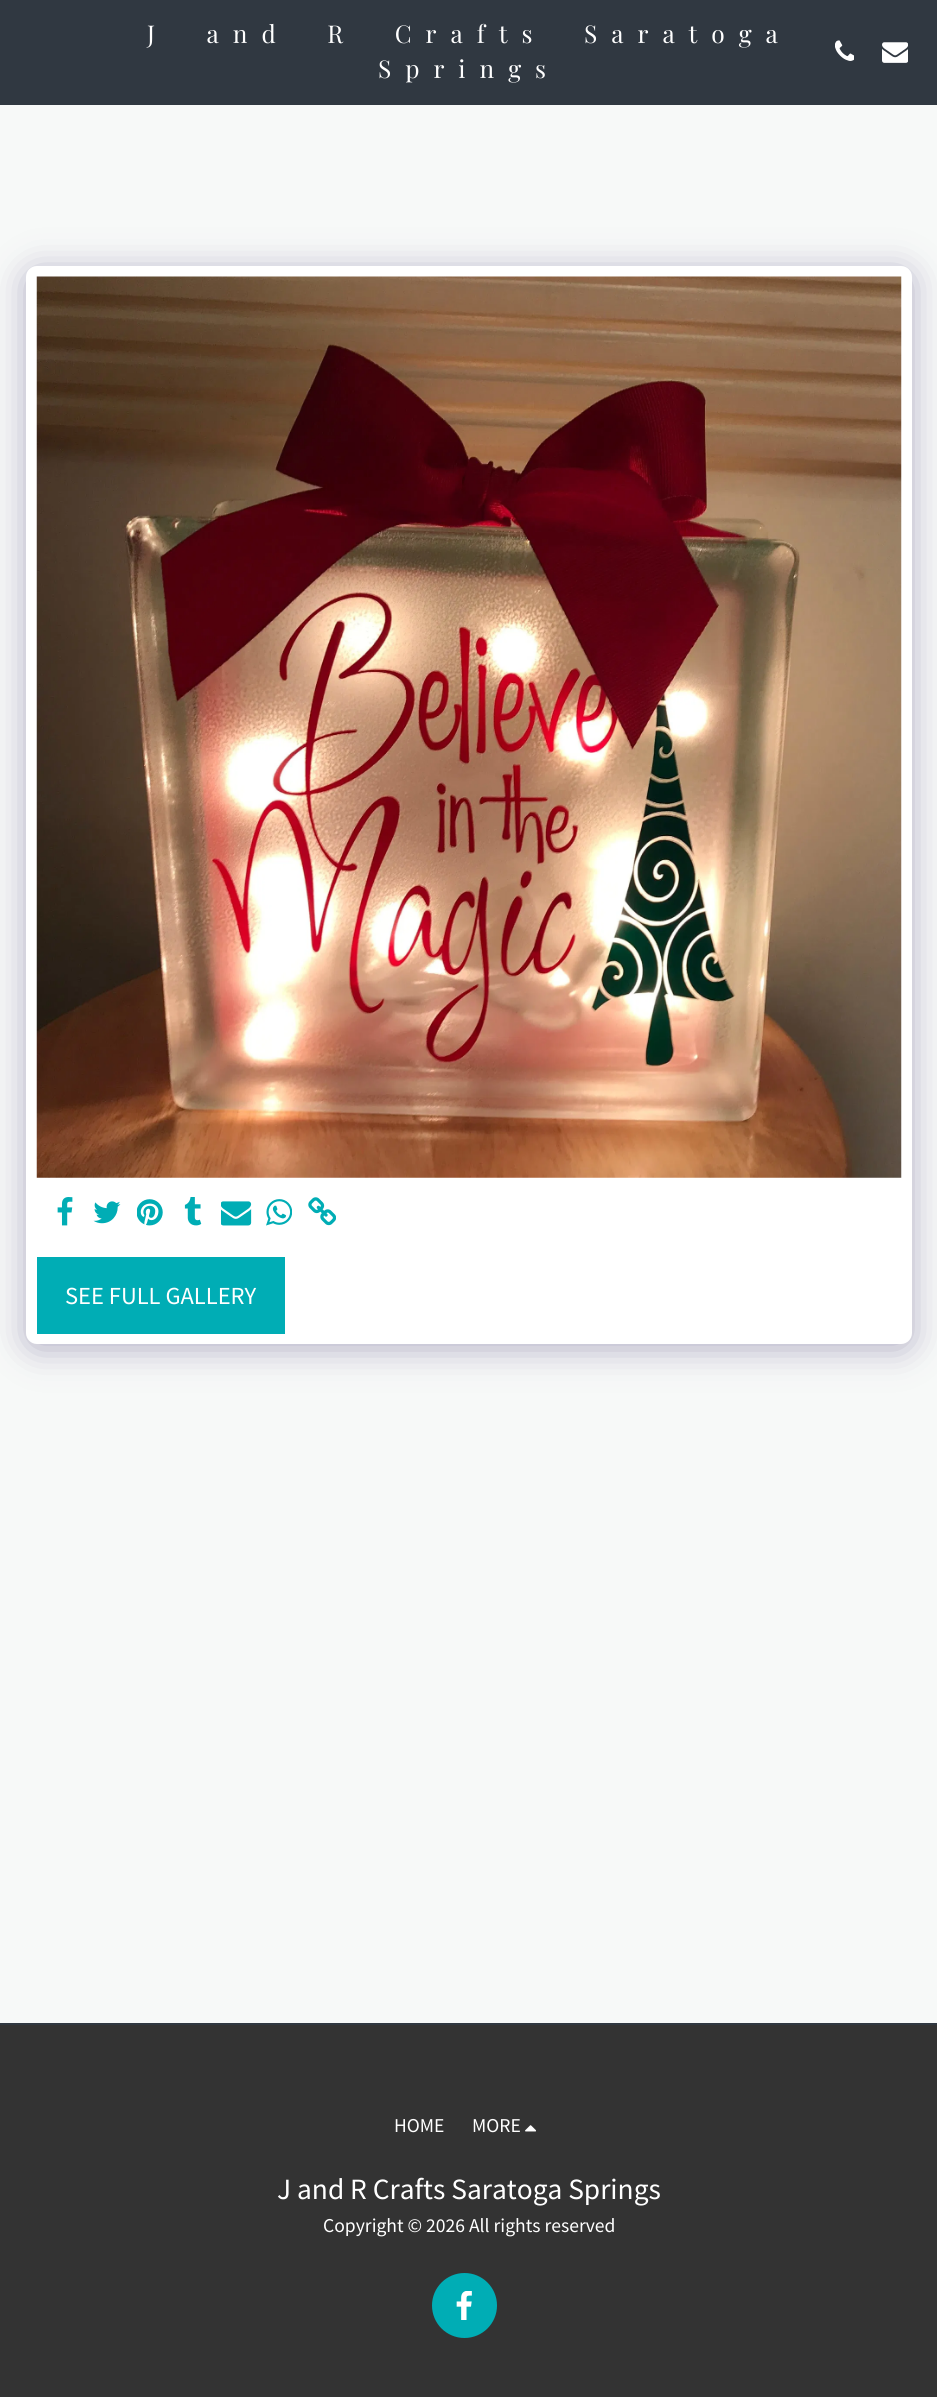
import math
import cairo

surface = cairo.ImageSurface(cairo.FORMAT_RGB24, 937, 2397)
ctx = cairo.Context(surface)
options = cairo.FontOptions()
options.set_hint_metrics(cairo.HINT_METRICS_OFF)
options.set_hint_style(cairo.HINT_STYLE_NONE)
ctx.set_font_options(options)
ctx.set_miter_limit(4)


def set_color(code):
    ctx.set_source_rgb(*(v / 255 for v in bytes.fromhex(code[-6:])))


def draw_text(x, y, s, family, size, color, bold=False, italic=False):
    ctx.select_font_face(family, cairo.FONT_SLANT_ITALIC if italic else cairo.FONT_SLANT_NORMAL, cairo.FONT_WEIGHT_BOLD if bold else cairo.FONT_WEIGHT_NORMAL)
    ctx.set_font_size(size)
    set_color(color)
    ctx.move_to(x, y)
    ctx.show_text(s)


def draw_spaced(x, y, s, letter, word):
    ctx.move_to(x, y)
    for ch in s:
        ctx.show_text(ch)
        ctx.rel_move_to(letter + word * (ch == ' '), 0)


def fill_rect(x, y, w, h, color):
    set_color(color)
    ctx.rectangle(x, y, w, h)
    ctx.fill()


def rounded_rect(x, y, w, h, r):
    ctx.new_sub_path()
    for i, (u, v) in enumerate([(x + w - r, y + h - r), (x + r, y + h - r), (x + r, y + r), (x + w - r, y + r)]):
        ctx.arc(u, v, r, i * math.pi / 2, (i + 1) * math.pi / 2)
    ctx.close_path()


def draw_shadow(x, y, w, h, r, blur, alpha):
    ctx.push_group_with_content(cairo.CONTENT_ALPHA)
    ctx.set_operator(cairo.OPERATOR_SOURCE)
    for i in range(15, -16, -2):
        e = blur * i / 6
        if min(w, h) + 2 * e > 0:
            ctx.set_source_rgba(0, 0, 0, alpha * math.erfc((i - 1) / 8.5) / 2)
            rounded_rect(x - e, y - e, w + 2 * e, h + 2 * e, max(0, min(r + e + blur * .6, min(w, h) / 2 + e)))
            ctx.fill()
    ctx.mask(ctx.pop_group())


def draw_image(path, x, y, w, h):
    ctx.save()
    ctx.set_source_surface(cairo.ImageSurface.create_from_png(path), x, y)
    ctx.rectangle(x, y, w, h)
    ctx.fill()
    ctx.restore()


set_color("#f7f9f8")
ctx.paint()
fill_rect(0, 0, 937, 105, "#303841")
ctx.select_font_face("Playfair Display")
ctx.set_font_size(24.5)
set_color("#ffffff")
draw_spaced(147, 43, "J and R Crafts Saratoga", 14, 17.5)
draw_spaced(378, 78, "Springs", 14, 0)
draw_image("assets/img1.png", 835, 40, 19, 21)
draw_image("assets/img2.png", 882, 42, 26, 21)
set_color("#4d3f7a")
draw_shadow(26, 271, 886, 1078, 11, 17.5, 0.4)
set_color("#ffffff")
rounded_rect(26, 266, 886, 1078, 11)
ctx.fill()
draw_image("assets/img3.png", 36, 276, 866, 902)
draw_image("assets/img4.png", 57, 1197, 16, 29)
draw_image("assets/img5.png", 93, 1201, 28, 23)
draw_image("assets/img6.png", 137, 1199, 26, 27)
draw_image("assets/img7.png", 184, 1197, 18, 29)
draw_image("assets/img8.png", 221, 1201, 31, 25)
draw_image("assets/img9.png", 266, 1199, 26, 27)
draw_image("assets/img10.png", 308, 1197, 28, 29)
fill_rect(37, 1257, 248, 77, "#00adb5")
draw_text(65, 1304, "SEE FULL GALLERY", "Source Sans Pro", 24.5, "#ffffff")
fill_rect(0, 2025, 937, 372, "#333333")
fill_rect(0, 2023, 937, 2, "#303841")
draw_text(394, 2132, "HOME", "Source Sans Pro", 19.6, "#ffffff")
draw_text(472, 2132, "MORE", "Source Sans Pro", 19.6, "#ffffff")
draw_image("assets/img11.png", 525, 2125, 11, 7)
draw_text(277, 2199, "J and R Crafts Saratoga Springs", "Source Sans Pro", 29.4, "#ffffff")
draw_text(323, 2232, "Copyright © 2026 All rights reserved", "Source Sans Pro", 19.6, "#ffffff")
set_color("#00adb5")
ctx.new_path()
ctx.arc(464.5, 2305.5, 31.5, 0, 2 * math.pi)
ctx.fill_preserve()
ctx.stroke()
draw_image("assets/img12.png", 456, 2291, 16, 29)
surface.write_to_png("output.png")
